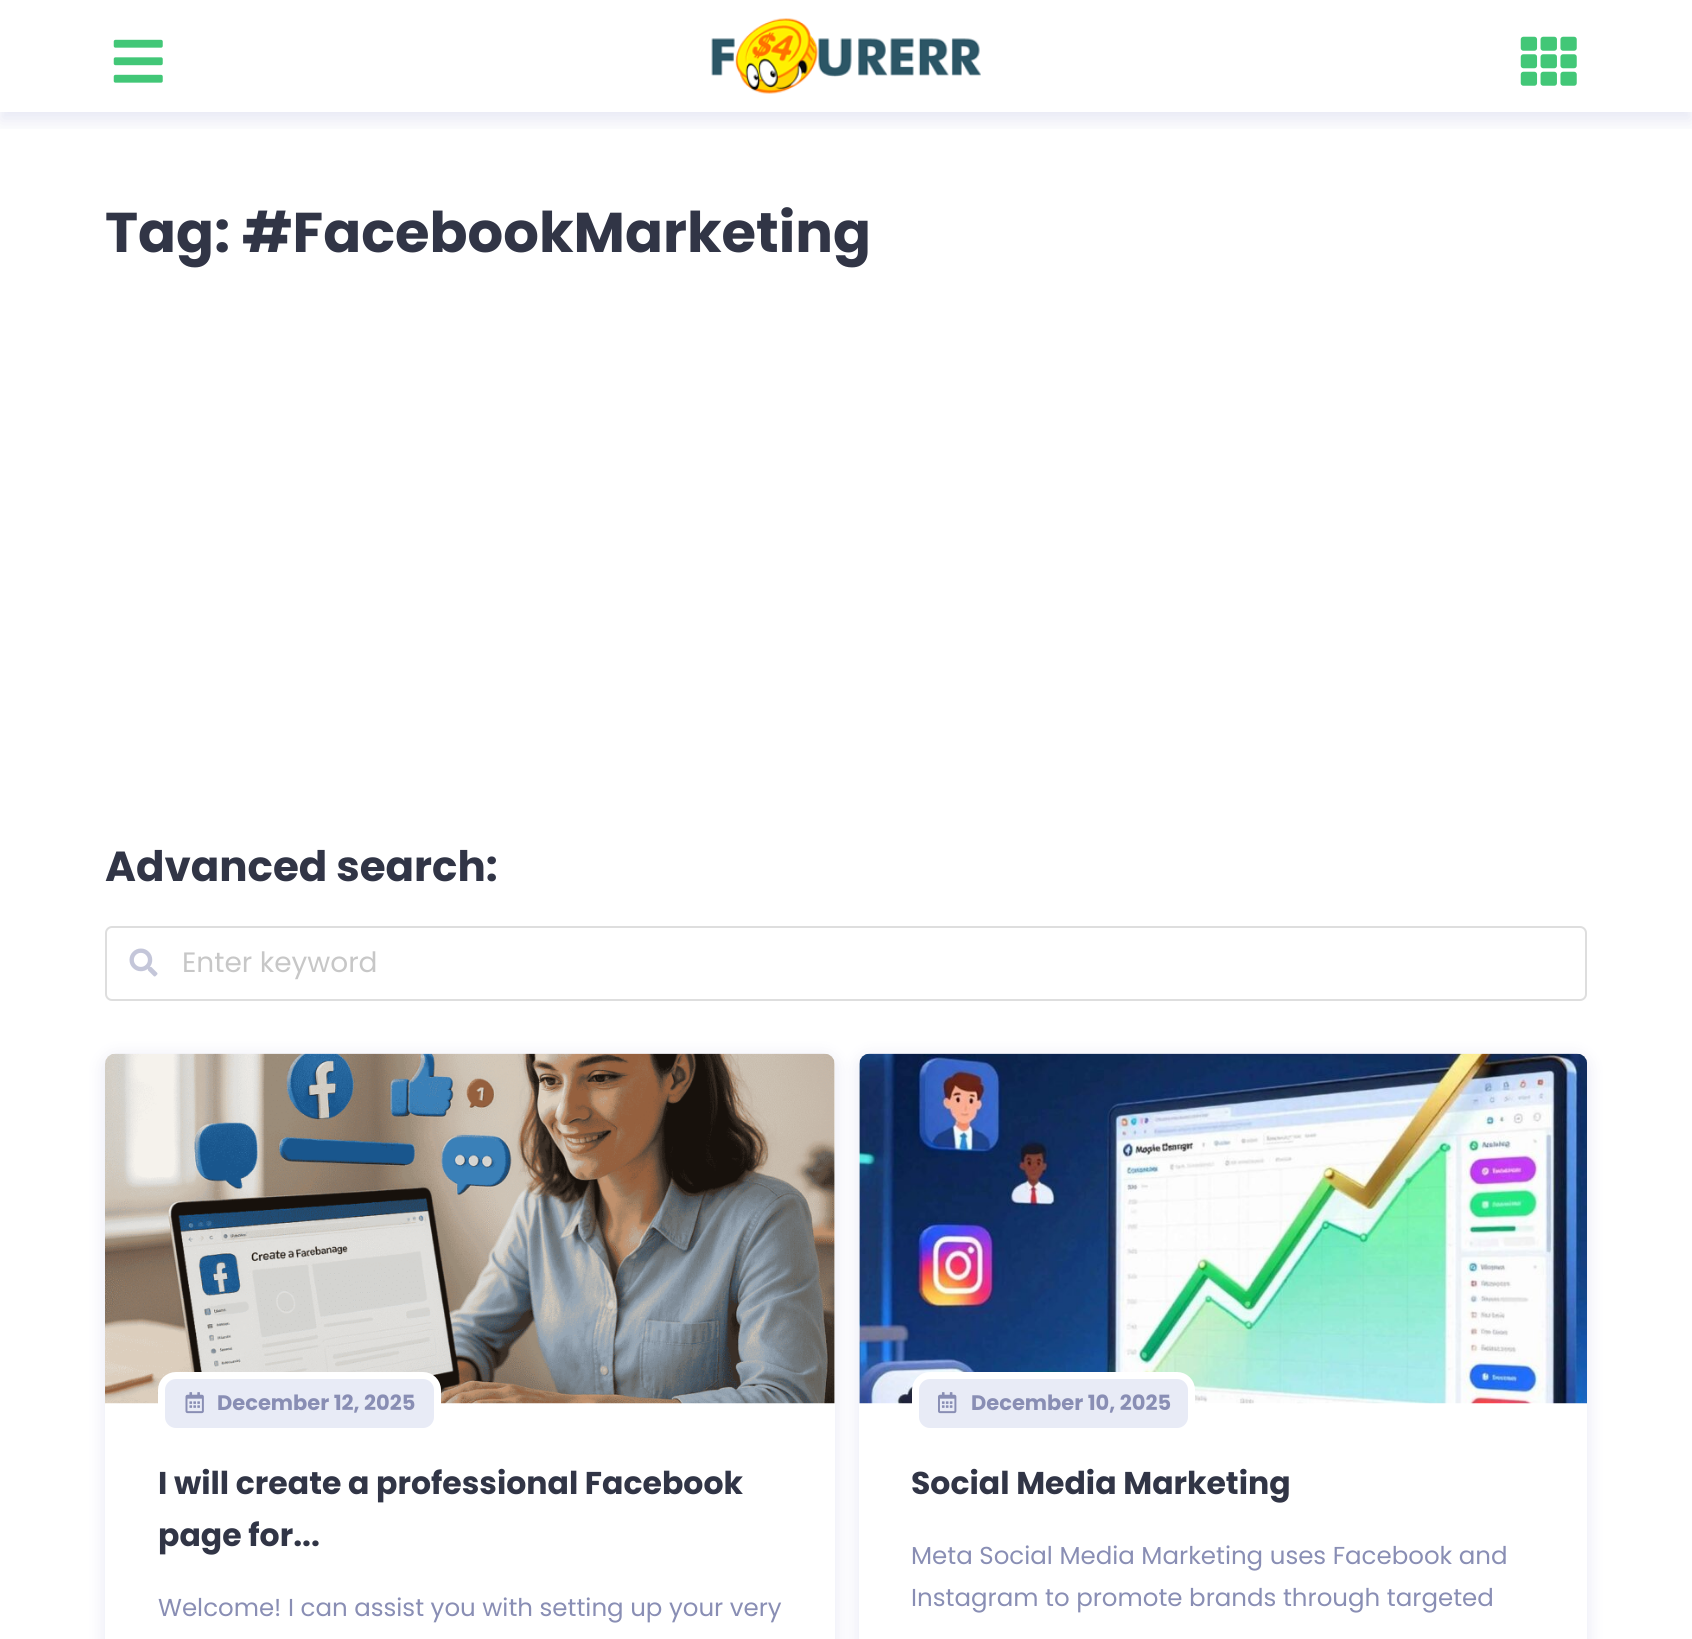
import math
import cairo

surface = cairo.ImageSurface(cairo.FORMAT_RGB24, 1692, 1639)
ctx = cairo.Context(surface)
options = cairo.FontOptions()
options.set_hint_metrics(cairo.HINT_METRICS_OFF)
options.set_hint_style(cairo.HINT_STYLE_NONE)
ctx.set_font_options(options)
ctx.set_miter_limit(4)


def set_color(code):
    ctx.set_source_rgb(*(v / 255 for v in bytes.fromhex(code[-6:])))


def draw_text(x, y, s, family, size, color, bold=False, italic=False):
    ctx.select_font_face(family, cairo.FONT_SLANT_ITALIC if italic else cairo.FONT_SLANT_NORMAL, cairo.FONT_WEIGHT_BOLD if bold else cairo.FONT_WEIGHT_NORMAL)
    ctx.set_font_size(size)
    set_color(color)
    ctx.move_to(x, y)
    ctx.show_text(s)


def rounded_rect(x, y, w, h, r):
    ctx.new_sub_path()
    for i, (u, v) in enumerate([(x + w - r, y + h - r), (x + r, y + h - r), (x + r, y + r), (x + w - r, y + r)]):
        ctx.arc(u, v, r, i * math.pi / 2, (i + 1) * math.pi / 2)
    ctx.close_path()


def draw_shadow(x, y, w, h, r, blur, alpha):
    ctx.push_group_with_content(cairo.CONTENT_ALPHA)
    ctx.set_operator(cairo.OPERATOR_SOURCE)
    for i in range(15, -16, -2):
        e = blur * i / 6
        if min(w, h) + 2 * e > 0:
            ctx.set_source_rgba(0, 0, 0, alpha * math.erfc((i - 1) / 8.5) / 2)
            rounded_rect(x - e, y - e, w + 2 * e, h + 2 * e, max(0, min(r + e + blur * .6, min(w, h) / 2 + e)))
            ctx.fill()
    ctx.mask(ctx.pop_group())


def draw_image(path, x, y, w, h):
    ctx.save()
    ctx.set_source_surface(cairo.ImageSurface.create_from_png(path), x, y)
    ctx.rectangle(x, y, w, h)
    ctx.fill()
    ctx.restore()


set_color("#ffffff")
ctx.paint()
ctx.save()
ctx.rectangle(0, 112, 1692, 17)
ctx.clip()
set_color("#121c90")
draw_shadow(0, 9, 1692, 112, 0, 9, 0.1)
ctx.restore()
draw_image("assets/img1.png", 113, 39, 50, 44)
draw_image("assets/img2.png", 711, 18, 270, 76)
draw_image("assets/img3.png", 1520, 36, 57, 50)
draw_text(105, 252, "Tag: #FacebookMarketing", "Poppins", 56, "#313546", bold=True)
draw_text(105, 881, "Advanced search:", "Poppins", 42, "#313546", bold=True)
rounded_rect(106, 927, 1480, 73, 6)
set_color("#dedede")
ctx.stroke()
draw_image("assets/img4.png", 129, 948, 29, 29)
draw_text(182, 972, "Enter keyword", "Poppins", 28, "#c7c7c7")
set_color("#000c91")
draw_shadow(105, 1057, 730, 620, 11, 9, 0.1)
set_color("#ffffff")
rounded_rect(105, 1054, 730, 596, 11)
ctx.fill()
set_color("#000c91")
draw_shadow(859, 1057, 728, 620, 11, 9, 0.1)
draw_image("assets/img5.png", 105, 1053, 730, 351)
set_color("#e8ebf6")
rounded_rect(161.5, 1375.5, 276, 56, 14.5)
ctx.fill_preserve()
set_color("#ffffff")
ctx.set_line_width(7)
ctx.stroke()
draw_image("assets/img6.png", 185, 1392, 19, 22)
draw_text(217, 1410, "December 12, 2025", "Poppins", 21, "#898eb4", bold=True)
draw_text(158, 1494, "I will create a professional Facebook", "Poppins", 31.5, "#313546", bold=True)
draw_text(158, 1546, "page for...", "Poppins", 31.5, "#313546", bold=True)
draw_text(158, 1616, "Welcome! I can assist you with setting up your very", "Poppins", 24.5, "#898eb4")
set_color("#ffffff")
rounded_rect(859, 1054, 728, 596, 11)
ctx.fill()
draw_image("assets/img7.png", 859, 1053, 728, 351)
set_color("#e8ebf6")
rounded_rect(915.5, 1375.5, 276, 56, 14.5)
ctx.fill_preserve()
set_color("#ffffff")
ctx.stroke()
draw_image("assets/img8.png", 938, 1392, 19, 22)
draw_text(971, 1410, "December 10, 2025", "Poppins", 21, "#898eb4", bold=True)
draw_text(911, 1494, "Social Media Marketing", "Poppins", 31.5, "#313546", bold=True)
draw_text(911, 1564, "Meta Social Media Marketing uses Facebook and", "Poppins", 24.5, "#898eb4")
draw_text(911, 1606, "Instagram to promote brands through targeted", "Poppins", 24.5, "#898eb4")
surface.write_to_png("output.png")
